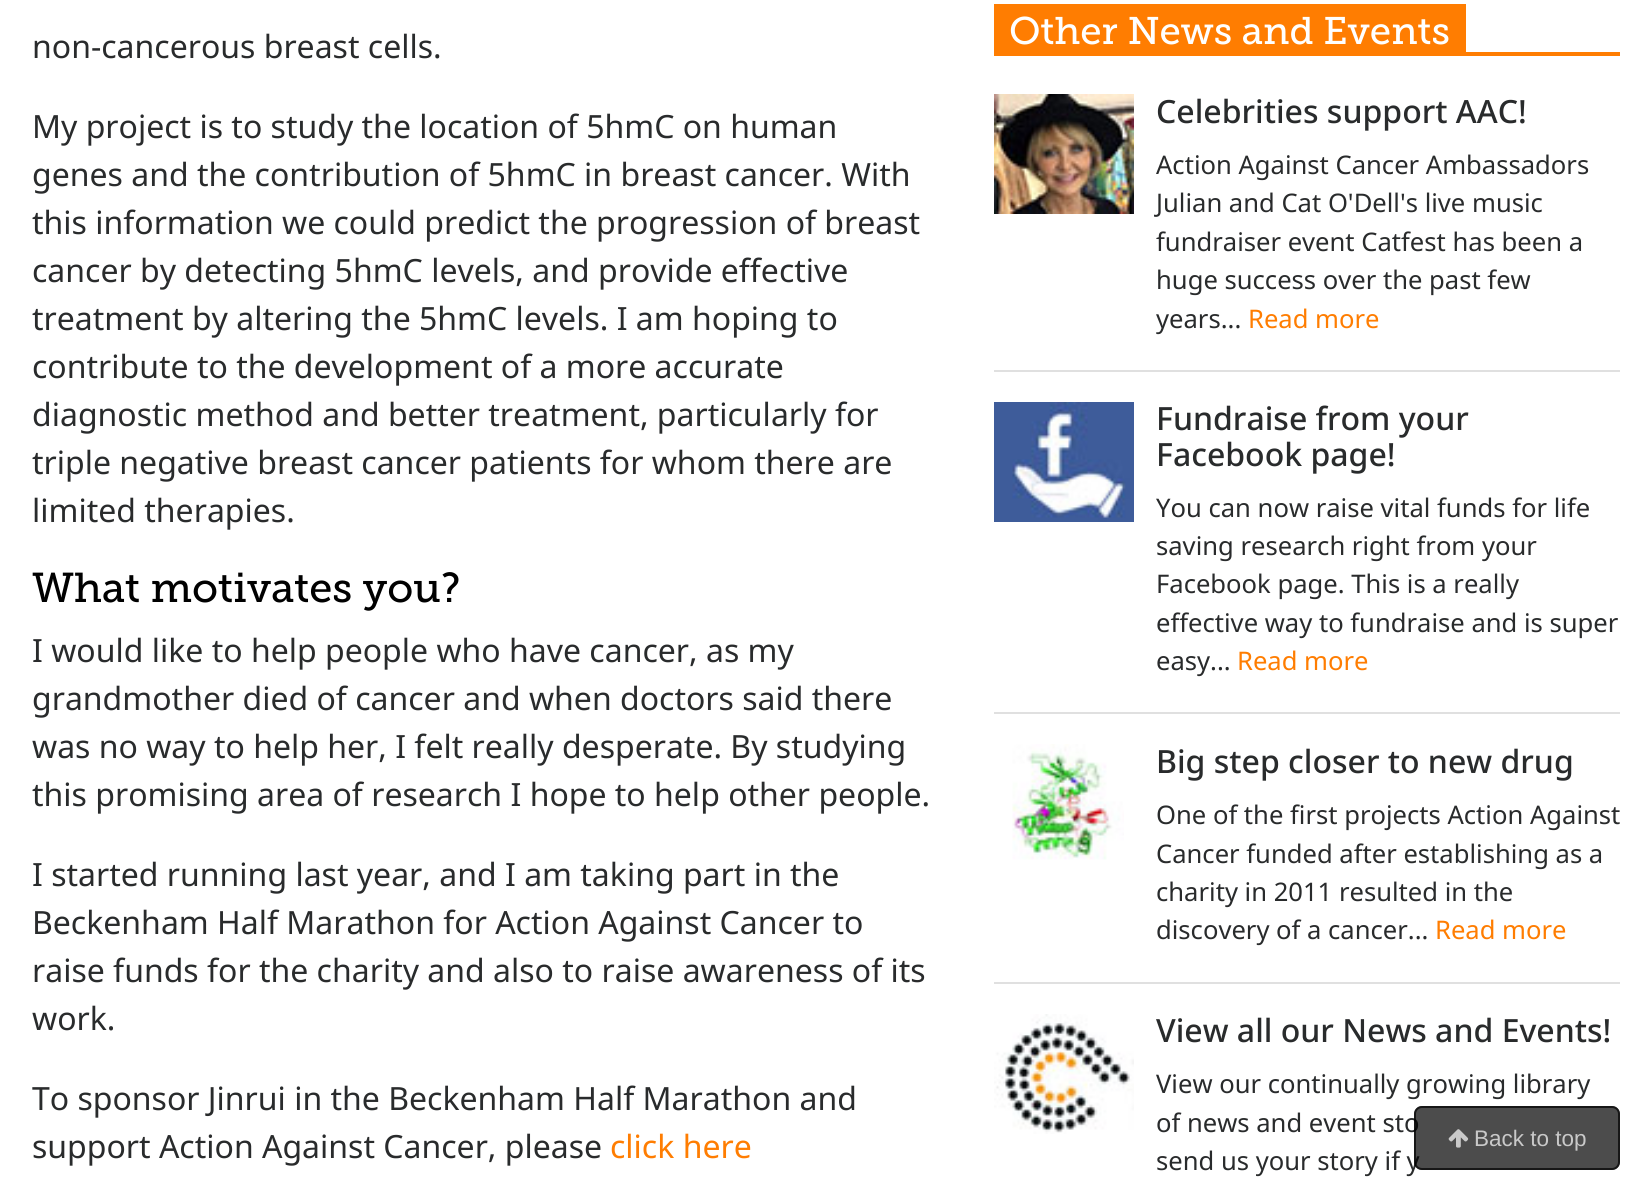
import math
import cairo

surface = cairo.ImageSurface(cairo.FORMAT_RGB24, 1651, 1201)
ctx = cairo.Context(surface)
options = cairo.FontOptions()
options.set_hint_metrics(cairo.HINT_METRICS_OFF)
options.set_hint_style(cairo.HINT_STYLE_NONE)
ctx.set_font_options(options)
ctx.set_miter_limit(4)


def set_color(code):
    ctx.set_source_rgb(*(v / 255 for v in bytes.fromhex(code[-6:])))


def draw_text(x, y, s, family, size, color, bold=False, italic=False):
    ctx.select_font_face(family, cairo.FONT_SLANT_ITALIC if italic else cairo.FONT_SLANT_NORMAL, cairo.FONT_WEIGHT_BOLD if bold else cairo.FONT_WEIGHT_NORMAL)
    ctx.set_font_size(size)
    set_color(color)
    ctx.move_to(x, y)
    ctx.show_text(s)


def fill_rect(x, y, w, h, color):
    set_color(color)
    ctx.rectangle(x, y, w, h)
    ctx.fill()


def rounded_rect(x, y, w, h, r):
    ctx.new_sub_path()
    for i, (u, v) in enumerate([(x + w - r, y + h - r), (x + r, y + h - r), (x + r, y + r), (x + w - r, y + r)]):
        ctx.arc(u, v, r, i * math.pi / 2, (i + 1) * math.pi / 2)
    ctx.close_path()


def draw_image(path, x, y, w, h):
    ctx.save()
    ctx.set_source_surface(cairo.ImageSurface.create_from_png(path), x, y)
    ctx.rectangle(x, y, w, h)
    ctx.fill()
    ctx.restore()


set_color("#ffffff")
ctx.paint()
draw_text(32, 58, "non-cancerous breast cells.", "Noto Sans", 32, "#292b2c")
draw_text(32, 138, "My project is to study the location of 5hmC on human", "Noto Sans", 32, "#292b2c")
draw_text(32, 186, "genes and the contribution of 5hmC in breast cancer. With", "Noto Sans", 32, "#292b2c")
draw_text(32, 234, "this information we could predict the progression of breast", "Noto Sans", 32, "#292b2c")
draw_text(32, 282, "cancer by detecting 5hmC levels, and provide effective", "Noto Sans", 32, "#292b2c")
draw_text(32, 330, "treatment by altering the 5hmC levels. I am hoping to", "Noto Sans", 32, "#292b2c")
draw_text(32, 378, "contribute to the development of a more accurate", "Noto Sans", 32, "#292b2c")
draw_text(32, 426, "diagnostic method and better treatment, particularly for", "Noto Sans", 32, "#292b2c")
draw_text(32, 474, "triple negative breast cancer patients for whom there are", "Noto Sans", 32, "#292b2c")
draw_text(32, 522, "limited therapies.", "Noto Sans", 32, "#292b2c")
draw_text(32, 602, "What motivates you?", "Museo Slab", 41.6, "#000000")
draw_text(32, 662, "I would like to help people who have cancer, as my", "Noto Sans", 32, "#292b2c")
draw_text(32, 710, "grandmother died of cancer and when doctors said there", "Noto Sans", 32, "#292b2c")
draw_text(32, 758, "was no way to help her, I felt really desperate. By studying", "Noto Sans", 32, "#292b2c")
draw_text(32, 806, "this promising area of research I hope to help other people.", "Noto Sans", 32, "#292b2c")
draw_text(32, 886, "I started running last year, and I am taking part in the", "Noto Sans", 32, "#292b2c")
draw_text(32, 934, "Beckenham Half Marathon for Action Against Cancer to", "Noto Sans", 32, "#292b2c")
draw_text(32, 982, "raise funds for the charity and also to raise awareness of its", "Noto Sans", 32, "#292b2c")
draw_text(32, 1030, "work.", "Noto Sans", 32, "#292b2c")
draw_text(32, 1110, "To sponsor Jinrui in the Beckenham Half Marathon and", "Noto Sans", 32, "#292b2c")
draw_text(32, 1158, "support Action Against Cancer, please", "Noto Sans", 32, "#292b2c")
draw_text(610, 1158, "click here", "Noto Sans", 32, "#ff7d01")
fill_rect(994, 52, 626, 4, "#ff7d01")
fill_rect(994, 4, 472, 48, "#ff7d01")
draw_text(1009, 44, "Other News and Events", "Museo Slab", 38.4, "#ffffff")
fill_rect(994, 370, 626, 2, "#e0e0e0")
draw_image("assets/img1.png", 994, 94, 140, 120)
draw_text(1156, 123, "Celebrities support AAC!", "Noto Sans Medium", 32, "#292b2c")
draw_text(1156, 174, "Action Against Cancer Ambassadors", "Noto Sans", 25.6, "#292b2c")
draw_text(1156, 212, "Julian and Cat O'Dell's live music", "Noto Sans", 25.6, "#292b2c")
draw_text(1156, 251, "fundraiser event Catfest has been a", "Noto Sans", 25.6, "#292b2c")
draw_text(1156, 289, "huge success over the past few", "Noto Sans", 25.6, "#292b2c")
draw_text(1156, 328, "years...", "Noto Sans", 25.6, "#292b2c")
draw_text(1248, 328, "Read more", "Noto Sans", 25.6, "#ff7d01")
fill_rect(994, 712, 626, 2, "#e0e0e0")
draw_image("assets/img2.png", 994, 402, 140, 120)
draw_text(1156, 430, "Fundraise from your", "Noto Sans Medium", 32, "#292b2c")
draw_text(1156, 466, "Facebook page!", "Noto Sans Medium", 32, "#292b2c")
draw_text(1156, 517, "You can now raise vital funds for life", "Noto Sans", 25.6, "#292b2c")
draw_text(1156, 555, "saving research right from your", "Noto Sans", 25.6, "#292b2c")
draw_text(1156, 593, "Facebook page. This is a really", "Noto Sans", 25.6, "#292b2c")
draw_text(1156, 632, "effective way to fundraise and is super", "Noto Sans", 25.6, "#292b2c")
draw_text(1156, 670, "easy...", "Noto Sans", 25.6, "#292b2c")
draw_text(1237, 670, "Read more", "Noto Sans", 25.6, "#ff7d01")
fill_rect(994, 982, 626, 2, "#e0e0e0")
draw_image("assets/img3.png", 1012, 744, 112, 116)
draw_text(1156, 773, "Big step closer to new drug", "Noto Sans Medium", 32, "#292b2c")
draw_text(1156, 824, "One of the first projects Action Against", "Noto Sans", 25.6, "#292b2c")
draw_text(1156, 863, "Cancer funded after establishing as a", "Noto Sans", 25.6, "#292b2c")
draw_text(1156, 901, "charity in 2011 resulted in the", "Noto Sans", 25.6, "#292b2c")
draw_text(1156, 939, "discovery of a cancer...", "Noto Sans", 25.6, "#292b2c")
draw_text(1435, 939, "Read more", "Noto Sans", 25.6, "#ff7d01")
draw_image("assets/img4.png", 994, 1014, 140, 120)
draw_text(1156, 1042, "View all our News and Events!", "Noto Sans Medium", 32, "#292b2c")
draw_text(1156, 1093, "View our continually growing library", "Noto Sans", 25.6, "#292b2c")
draw_text(1156, 1132, "of news and event sto", "Noto Sans", 25.6, "#292b2c")
draw_text(1156, 1170, "send us your story if y", "Noto Sans", 25.6, "#292b2c")
ctx.set_source_rgba(0, 0, 0, 0.7)
rounded_rect(1414, 1106, 206, 64, 8)
ctx.fill()
rounded_rect(1415, 1107, 204, 62, 7)
ctx.stroke()
draw_image("assets/img5.png", 1448, 1129, 21, 19)
draw_text(1474, 1146, "Back to top", "Liberation Sans", 22.5, "#c9c9c9")
surface.write_to_png("output.png")
